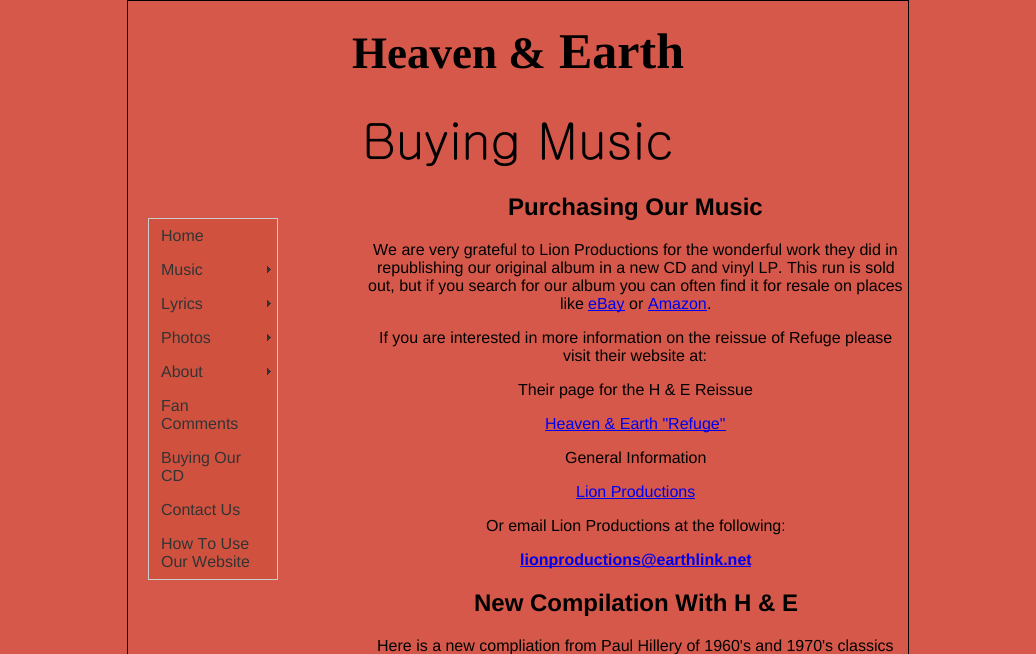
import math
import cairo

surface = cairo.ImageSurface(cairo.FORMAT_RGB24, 1036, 654)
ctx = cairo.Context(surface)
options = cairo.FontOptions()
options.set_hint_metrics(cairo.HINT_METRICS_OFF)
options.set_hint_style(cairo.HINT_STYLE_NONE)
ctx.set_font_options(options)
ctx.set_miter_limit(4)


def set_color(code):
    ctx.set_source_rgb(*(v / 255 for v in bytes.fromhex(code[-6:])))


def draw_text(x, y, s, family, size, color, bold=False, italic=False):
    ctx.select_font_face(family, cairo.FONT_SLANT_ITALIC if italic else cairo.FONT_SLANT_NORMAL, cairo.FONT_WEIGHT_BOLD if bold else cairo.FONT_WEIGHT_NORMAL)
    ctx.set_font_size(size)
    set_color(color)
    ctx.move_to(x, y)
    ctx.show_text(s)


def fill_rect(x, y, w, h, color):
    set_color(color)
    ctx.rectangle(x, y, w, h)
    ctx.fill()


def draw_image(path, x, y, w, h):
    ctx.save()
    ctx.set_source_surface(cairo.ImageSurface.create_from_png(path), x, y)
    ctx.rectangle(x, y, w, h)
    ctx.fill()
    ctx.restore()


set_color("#d5584a")
ctx.paint()
ctx.rectangle(127.5, 0.5, 781, 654)
set_color("#000000")
ctx.set_line_width(1)
ctx.stroke()
draw_text(352, 68, "Heaven &", "Liberation Serif", 45, "#000000", bold=True)
draw_text(559, 68, "Earth", "Liberation Serif", 50, "#000000", bold=True)
draw_text(362, 159, "Buying Music", "Gulim", 50, "#000000")
ctx.rectangle(148.5, 218.5, 129, 361)
set_color("#cccccc")
ctx.stroke()
fill_rect(149, 219, 128, 360, "#d1513f")
draw_text(161, 241, "Home", "Liberation Sans", 16, "#333333")
draw_image("assets/img1.png", 267, 266, 4, 7)
draw_text(161, 275, "Music", "Liberation Sans", 16, "#333333")
draw_image("assets/img1.png", 267, 300, 4, 7)
draw_text(161, 309, "Lyrics", "Liberation Sans", 16, "#333333")
draw_image("assets/img1.png", 267, 334, 4, 7)
draw_text(161, 343, "Photos", "Liberation Sans", 16, "#333333")
draw_image("assets/img1.png", 267, 368, 4, 7)
draw_text(161, 377, "About", "Liberation Sans", 16, "#333333")
draw_text(161, 411, "Fan", "Liberation Sans", 16, "#333333")
draw_text(161, 429, "Comments", "Liberation Sans", 16, "#333333")
draw_text(161, 463, "Buying Our", "Liberation Sans", 16, "#333333")
draw_text(161, 481, "CD", "Liberation Sans", 16, "#333333")
draw_text(161, 515, "Contact Us", "Liberation Sans", 16, "#333333")
draw_text(161, 549, "How To Use", "Liberation Sans", 16, "#333333")
draw_text(161, 567, "Our Website", "Liberation Sans", 16, "#333333")
draw_text(508, 215, "Purchasing Our Music", "Liberation Sans", 24, "#000000", bold=True)
draw_text(373, 255, "We are very grateful to Lion Productions for the wonderful work they did in", "Liberation Sans", 16, "#000000")
draw_text(377, 273, "republishing our original album in a new CD and vinyl LP. This run is sold", "Liberation Sans", 16, "#000000")
draw_text(368, 291, "out, but if you search for our album you can often find it for resale on places", "Liberation Sans", 16, "#000000")
draw_text(560, 309, "like", "Liberation Sans", 16, "#000000")
fill_rect(588, 310, 37, 1, "#0000ee")
draw_text(588, 309, "eBay", "Liberation Sans", 16, "#0000ee")
draw_text(629, 309, "or", "Liberation Sans", 16, "#000000")
draw_text(648, 309, "Amazon", "Liberation Sans", 16, "#0000ee")
fill_rect(648, 310, 59, 1, "#0000ee")
draw_text(707, 309, ".", "Liberation Sans", 16, "#000000")
draw_text(379, 343, "If you are interested in more information on the reissue of Refuge please", "Liberation Sans", 16, "#000000")
draw_text(563, 361, "visit their website at:", "Liberation Sans", 16, "#000000")
draw_text(518, 395, "Their page for the H & E Reissue", "Liberation Sans", 16, "#000000")
fill_rect(545, 430, 181, 1, "#0000ee")
draw_text(545, 429, "Heaven & Earth \"Refuge\"", "Liberation Sans", 16, "#0000ee")
draw_text(565, 463, "General Information", "Liberation Sans", 16, "#000000")
draw_text(576, 497, "Lion Productions", "Liberation Sans", 16, "#0000ee")
fill_rect(576, 498, 119, 1, "#0000ee")
draw_text(486, 531, "Or email Lion Productions at the following:", "Liberation Sans", 16, "#000000")
fill_rect(520, 566, 231, 1, "#0000ee")
draw_text(520, 565, "lionproductions@earthlink.net", "Liberation Sans", 16, "#0000ee", bold=True)
draw_text(474, 611, "New Compilation With H & E", "Liberation Sans", 24, "#000000", bold=True)
draw_text(377, 651, "Here is a new compliation from Paul Hillery of 1960's and 1970's classics", "Liberation Sans", 16, "#000000")
surface.write_to_png("output.png")
